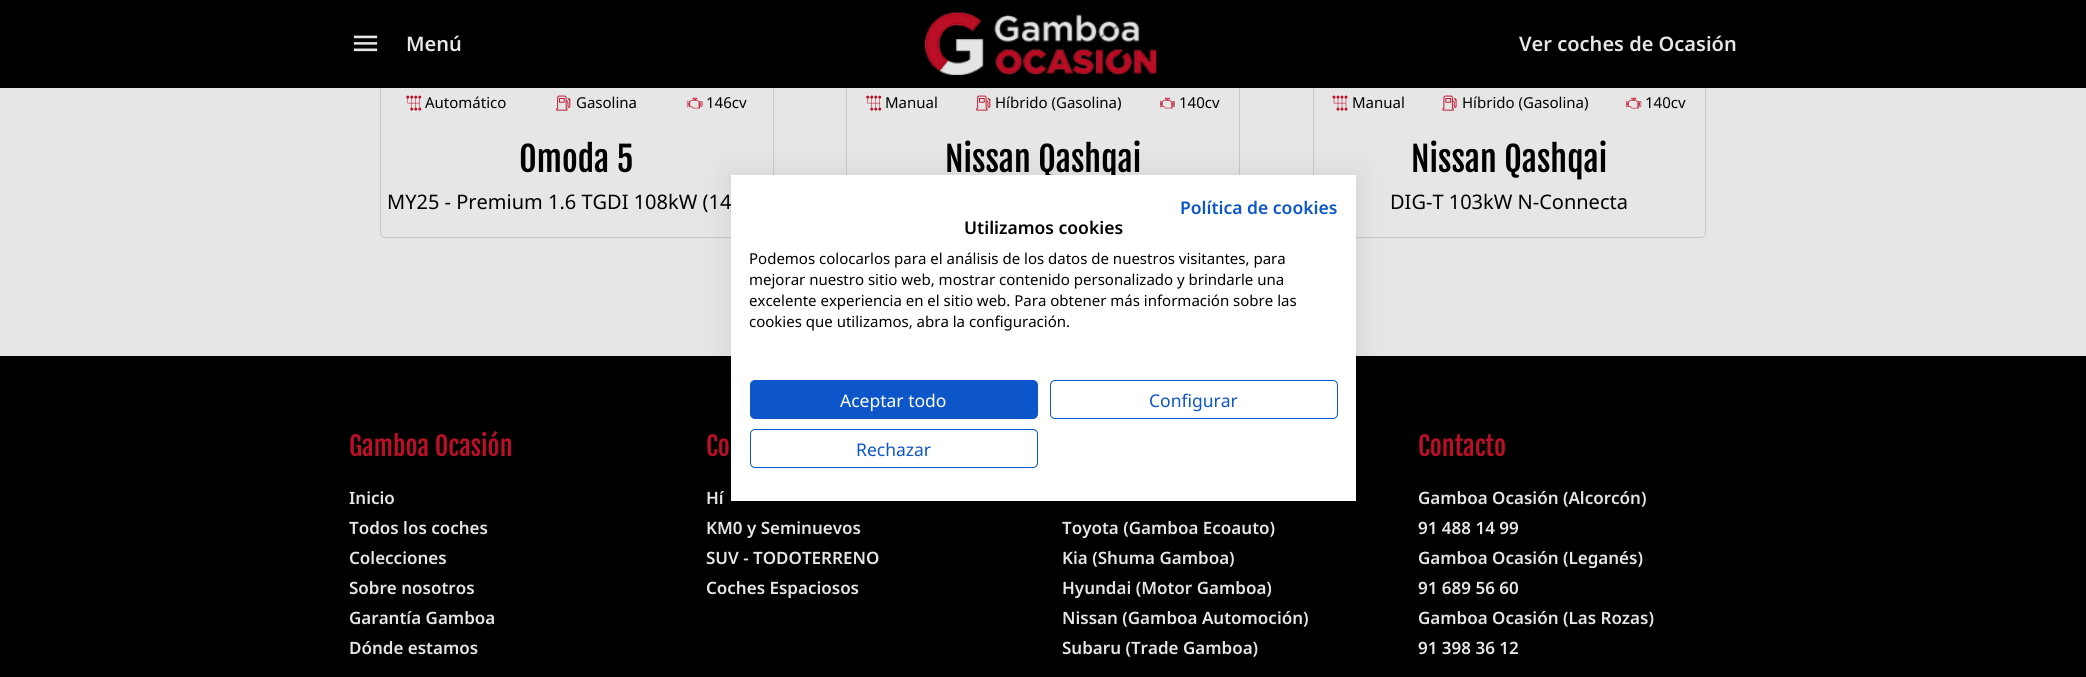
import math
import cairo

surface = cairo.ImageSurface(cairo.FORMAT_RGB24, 2086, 677)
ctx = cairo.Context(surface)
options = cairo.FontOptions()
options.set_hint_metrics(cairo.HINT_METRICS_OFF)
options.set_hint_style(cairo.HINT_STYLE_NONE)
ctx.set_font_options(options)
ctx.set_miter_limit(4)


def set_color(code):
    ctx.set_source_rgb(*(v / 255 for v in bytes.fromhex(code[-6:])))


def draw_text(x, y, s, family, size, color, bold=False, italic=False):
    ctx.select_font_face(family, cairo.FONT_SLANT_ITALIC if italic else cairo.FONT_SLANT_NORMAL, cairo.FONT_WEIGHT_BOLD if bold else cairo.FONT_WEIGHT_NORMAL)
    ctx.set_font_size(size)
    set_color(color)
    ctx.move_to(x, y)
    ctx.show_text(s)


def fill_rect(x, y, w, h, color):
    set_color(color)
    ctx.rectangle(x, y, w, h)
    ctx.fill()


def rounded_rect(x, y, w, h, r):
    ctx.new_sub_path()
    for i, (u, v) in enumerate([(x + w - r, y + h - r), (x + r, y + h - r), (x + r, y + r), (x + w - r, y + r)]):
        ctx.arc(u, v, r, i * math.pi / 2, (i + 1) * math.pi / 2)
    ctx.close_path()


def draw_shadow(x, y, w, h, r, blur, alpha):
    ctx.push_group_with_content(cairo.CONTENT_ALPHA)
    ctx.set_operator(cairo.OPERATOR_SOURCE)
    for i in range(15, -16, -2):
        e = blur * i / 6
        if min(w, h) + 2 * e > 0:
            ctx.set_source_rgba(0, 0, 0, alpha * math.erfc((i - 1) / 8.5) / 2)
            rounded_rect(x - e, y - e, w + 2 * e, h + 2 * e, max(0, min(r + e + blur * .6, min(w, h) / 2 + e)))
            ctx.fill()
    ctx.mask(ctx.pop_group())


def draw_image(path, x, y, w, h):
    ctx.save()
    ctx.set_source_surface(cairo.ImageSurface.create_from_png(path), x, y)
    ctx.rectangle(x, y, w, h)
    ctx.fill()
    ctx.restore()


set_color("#e6e6e6")
ctx.paint()
rounded_rect(380.5, -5.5, 393, 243, 4.5)
set_color("#c9c9c9")
ctx.set_line_width(1)
ctx.stroke()
ctx.rectangle(846.5, -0.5, 393, 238)
ctx.stroke()
rounded_rect(1313.5, -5.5, 392, 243, 4.5)
ctx.stroke()
fill_rect(0, 0, 2086, 88, "#000000")
draw_image("assets/img1.png", 353, 35, 25, 17)
draw_text(406, 51, "Menú", "Noto Sans SemiBold", 20, "#e6e6e6")
draw_image("assets/img2.png", 924, 12, 233, 63)
draw_text(1519, 51, "Ver coches de Ocasión", "Noto Sans SemiBold", 20, "#e6e6e6")
draw_image("assets/img3.png", 406, 95, 16, 16)
draw_text(425, 108, "Automático", "Noto Sans", 15, "#000000")
draw_image("assets/img4.png", 556, 95, 15, 16)
draw_text(576, 108, "Gasolina", "Noto Sans", 15, "#000000")
draw_image("assets/img5.png", 687, 97, 16, 12)
draw_text(706, 108, "146cv", "Noto Sans", 15, "#000000")
draw_text(519, 172, "Omoda 5", "Fjalla One", 34, "#000000")
draw_text(387, 209, "MY25 - Premium 1.6 TGDI 108kW (14", "Noto Sans", 20, "#000000")
draw_image("assets/img3.png", 866, 95, 16, 16)
draw_text(885, 108, "Manual", "Noto Sans", 15, "#000000")
draw_image("assets/img4.png", 976, 95, 15, 16)
draw_text(995, 108, "Híbrido (Gasolina)", "Noto Sans", 15, "#000000")
draw_image("assets/img6.png", 1160, 97, 15, 12)
draw_text(1179, 108, "140cv", "Noto Sans", 15, "#000000")
draw_text(945, 172, "Nissan Qashqai", "Fjalla One", 34, "#000000")
draw_image("assets/img7.png", 1332, 95, 16, 16)
draw_text(1352, 108, "Manual", "Noto Sans", 15, "#000000")
draw_image("assets/img8.png", 1442, 95, 15, 16)
draw_text(1462, 108, "Híbrido (Gasolina)", "Noto Sans", 15, "#000000")
draw_image("assets/img9.png", 1626, 97, 16, 12)
draw_text(1645, 108, "140cv", "Noto Sans", 15, "#000000")
draw_text(1411, 172, "Nissan Qashqai", "Fjalla One", 34, "#000000")
draw_text(1390, 209, "DIG-T 103kW N-Connecta", "Noto Sans", 20, "#000000")
fill_rect(0, 356, 2086, 321, "#000000")
draw_text(349, 456, "Gamboa Ocasión", "Fjalla One", 26, "#bb0f28")
draw_text(349, 504, "Inicio", "Noto Sans SemiBold", 17, "#e6e6e6")
draw_text(349, 534, "Todos los coches", "Noto Sans SemiBold", 17, "#e6e6e6")
draw_text(349, 564, "Colecciones", "Noto Sans SemiBold", 17, "#e6e6e6")
draw_text(349, 594, "Sobre nosotros", "Noto Sans SemiBold", 17, "#e6e6e6")
draw_text(349, 624, "Garantía Gamboa", "Noto Sans SemiBold", 17, "#e6e6e6")
draw_text(349, 654, "Dónde estamos", "Noto Sans SemiBold", 17, "#e6e6e6")
draw_text(706, 456, "Co", "Fjalla One", 26, "#bb0f28")
draw_text(706, 504, "Hí", "Noto Sans SemiBold", 17, "#e6e6e6")
draw_text(706, 534, "KM0 y Seminuevos", "Noto Sans SemiBold", 17, "#e6e6e6")
draw_text(706, 564, "SUV - TODOTERRENO", "Noto Sans SemiBold", 17, "#e6e6e6")
draw_text(706, 594, "Coches Espaciosos", "Noto Sans SemiBold", 17, "#e6e6e6")
draw_text(1062, 534, "Toyota (Gamboa Ecoauto)", "Noto Sans SemiBold", 17, "#e6e6e6")
draw_text(1062, 564, "Kia (Shuma Gamboa)", "Noto Sans SemiBold", 17, "#e6e6e6")
draw_text(1062, 594, "Hyundai (Motor Gamboa)", "Noto Sans SemiBold", 17, "#e6e6e6")
draw_text(1062, 624, "Nissan (Gamboa Automoción)", "Noto Sans SemiBold", 17, "#e6e6e6")
draw_text(1062, 654, "Subaru (Trade Gamboa)", "Noto Sans SemiBold", 17, "#e6e6e6")
draw_text(1418, 456, "Contacto", "Fjalla One", 26, "#bb0f28")
draw_text(1418, 504, "Gamboa Ocasión (Alcorcón)", "Noto Sans SemiBold", 17, "#e6e6e6")
draw_text(1418, 534, "91 488 14 99", "Noto Sans SemiBold", 17, "#e6e6e6")
draw_text(1418, 564, "Gamboa Ocasión (Leganés)", "Noto Sans SemiBold", 17, "#e6e6e6")
draw_text(1418, 594, "91 689 56 60", "Noto Sans SemiBold", 17, "#e6e6e6")
draw_text(1418, 624, "Gamboa Ocasión (Las Rozas)", "Noto Sans SemiBold", 17, "#e6e6e6")
draw_text(1418, 654, "91 398 36 12", "Noto Sans SemiBold", 17, "#e6e6e6")
set_color("#000000")
draw_shadow(731, 175, 625, 326, 0, 15, 0.1)
fill_rect(731, 175, 625, 326, "#ffffff")
draw_text(1180, 214, "Política de cookies", "Noto Sans SemiBold", 17.5, "#0d56c9")
draw_text(964, 234, "Utilizamos cookies", "Noto Sans SemiBold", 17.5, "#000000")
draw_text(749, 264, "Podemos colocarlos para el análisis de los datos de nuestros visitantes, para", "Noto Sans", 15, "#000000")
draw_text(749, 285, "mejorar nuestro sitio web, mostrar contenido personalizado y brindarle una", "Noto Sans", 15, "#000000")
draw_text(749, 306, "excelente experiencia en el sitio web. Para obtener más información sobre las", "Noto Sans", 15, "#000000")
draw_text(749, 327, "cookies que utilizamos, abra la configuración.", "Noto Sans", 15, "#000000")
set_color("#0d56c9")
rounded_rect(750.5, 380.5, 287, 38, 4.5)
ctx.fill_preserve()
ctx.stroke()
draw_text(840, 407, "Aceptar todo", "Noto Sans", 17.5, "#ffffff")
rounded_rect(1050.5, 380.5, 287, 38, 4.5)
set_color("#0d56c9")
ctx.stroke()
draw_text(1149, 407, "Configurar", "Noto Sans", 17.5, "#0d56c9")
rounded_rect(750.5, 429.5, 287, 38, 4.5)
ctx.stroke()
draw_text(856, 456, "Rechazar", "Noto Sans", 17.5, "#0d56c9")
surface.write_to_png("output.png")
